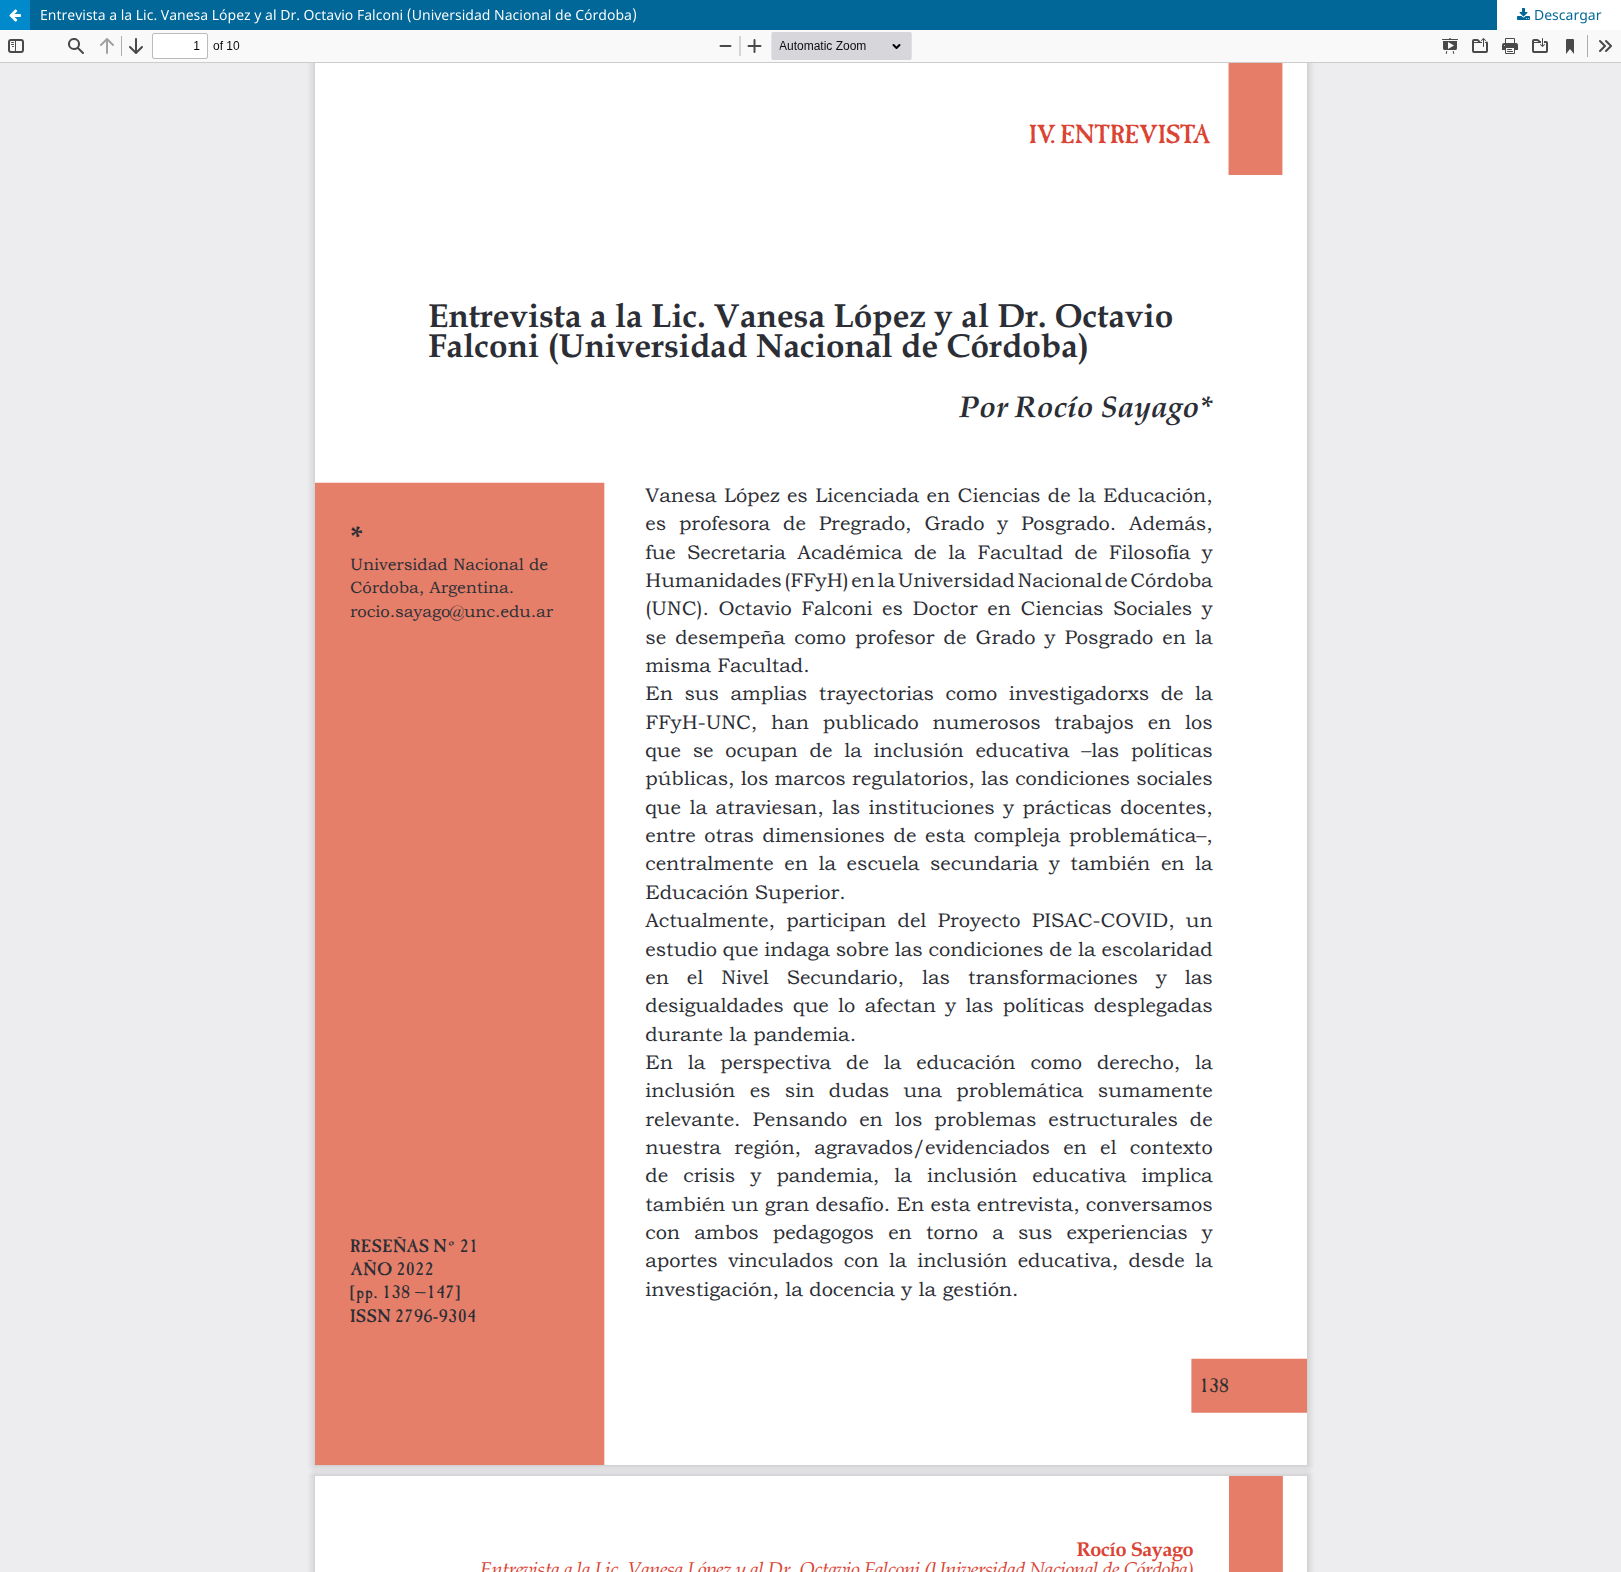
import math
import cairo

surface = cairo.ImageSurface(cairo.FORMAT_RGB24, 1621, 1572)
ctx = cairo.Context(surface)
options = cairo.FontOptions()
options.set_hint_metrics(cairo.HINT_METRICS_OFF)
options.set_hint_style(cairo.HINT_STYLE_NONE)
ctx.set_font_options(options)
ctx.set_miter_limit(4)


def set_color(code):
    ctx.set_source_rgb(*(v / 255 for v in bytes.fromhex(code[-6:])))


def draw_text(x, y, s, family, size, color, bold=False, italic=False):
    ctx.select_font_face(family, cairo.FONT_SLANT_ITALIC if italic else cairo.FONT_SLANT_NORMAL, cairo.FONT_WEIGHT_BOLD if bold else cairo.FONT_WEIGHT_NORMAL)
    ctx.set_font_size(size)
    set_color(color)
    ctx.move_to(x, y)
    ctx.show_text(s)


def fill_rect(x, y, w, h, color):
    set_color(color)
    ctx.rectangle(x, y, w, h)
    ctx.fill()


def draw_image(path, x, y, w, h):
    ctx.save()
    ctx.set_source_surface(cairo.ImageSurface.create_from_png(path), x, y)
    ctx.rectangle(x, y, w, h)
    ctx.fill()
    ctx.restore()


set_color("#ffffff")
ctx.paint()
fill_rect(30, 0, 1467, 30, "#006798")
fill_rect(0, 0, 30, 30, "#008acb")
draw_image("assets/img1.png", 9, 9, 12, 13)
draw_text(40, 20, "Entrevista a la Lic. Vanesa López y al Dr. Octavio Falconi (Universidad Nacional de Córdoba)", "Noto Sans", 14, "#ffffff")
draw_image("assets/img2.png", 1517, 8, 13, 12)
draw_text(1534, 20, "Descargar", "Noto Sans", 14, "#006798")
draw_image("assets/img3.png", 0, 30, 1621, 1542)
surface.write_to_png("output.png")
